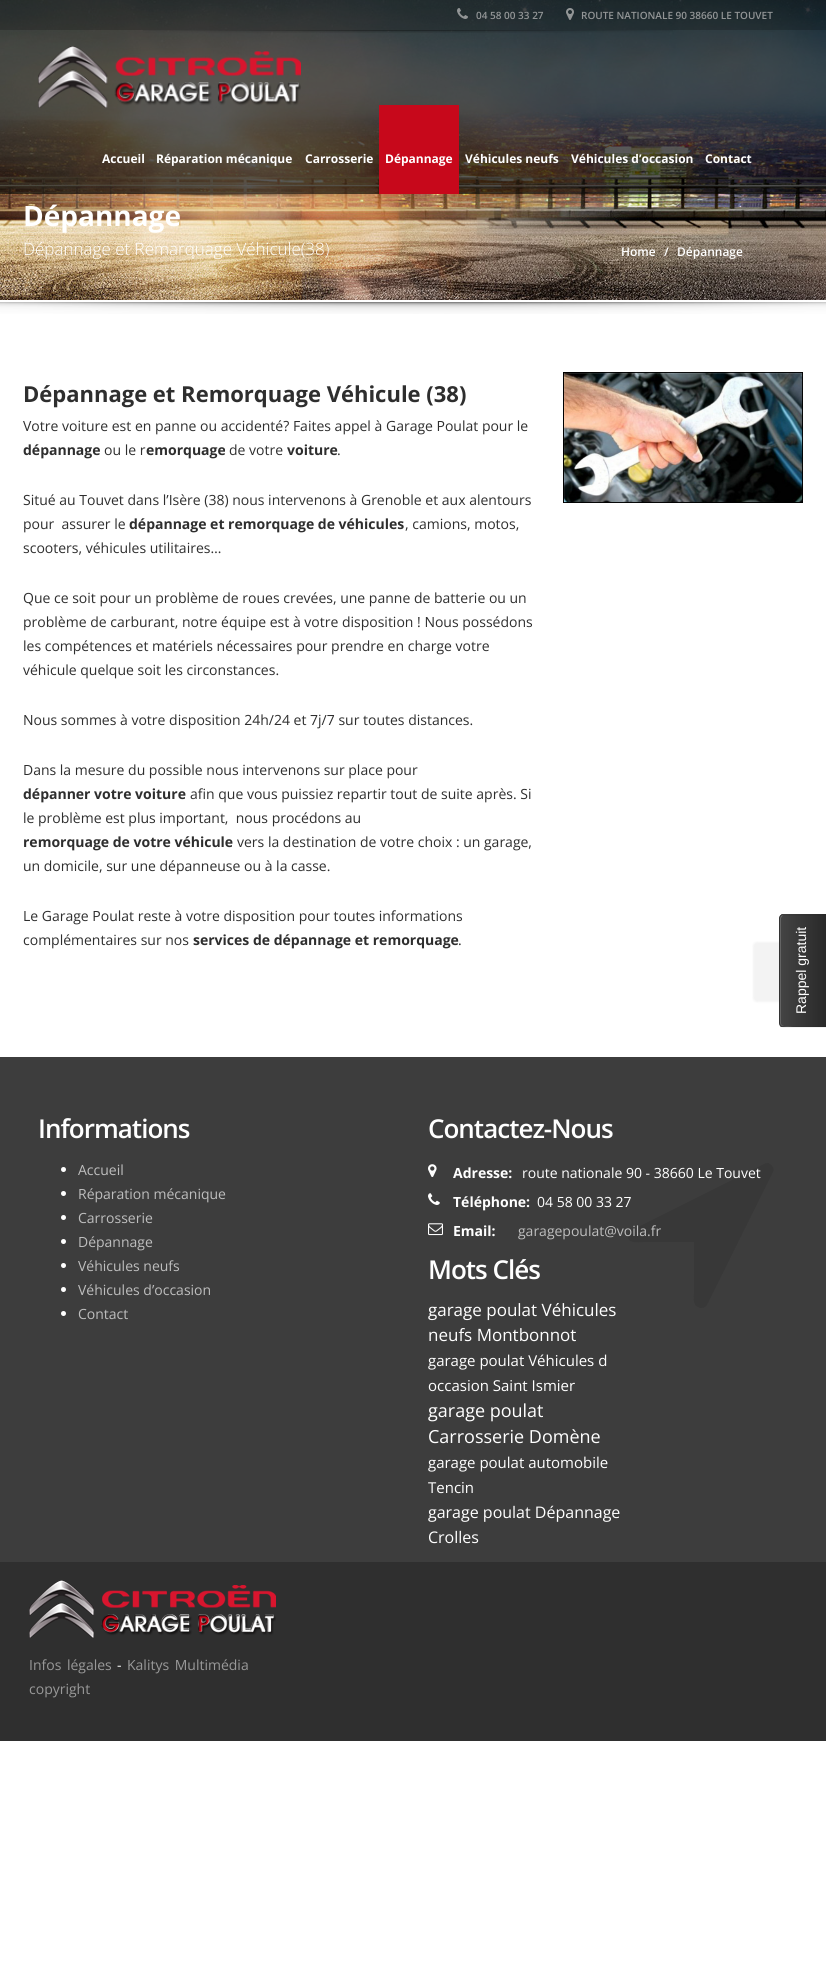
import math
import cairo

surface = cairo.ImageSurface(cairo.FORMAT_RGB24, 826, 1962)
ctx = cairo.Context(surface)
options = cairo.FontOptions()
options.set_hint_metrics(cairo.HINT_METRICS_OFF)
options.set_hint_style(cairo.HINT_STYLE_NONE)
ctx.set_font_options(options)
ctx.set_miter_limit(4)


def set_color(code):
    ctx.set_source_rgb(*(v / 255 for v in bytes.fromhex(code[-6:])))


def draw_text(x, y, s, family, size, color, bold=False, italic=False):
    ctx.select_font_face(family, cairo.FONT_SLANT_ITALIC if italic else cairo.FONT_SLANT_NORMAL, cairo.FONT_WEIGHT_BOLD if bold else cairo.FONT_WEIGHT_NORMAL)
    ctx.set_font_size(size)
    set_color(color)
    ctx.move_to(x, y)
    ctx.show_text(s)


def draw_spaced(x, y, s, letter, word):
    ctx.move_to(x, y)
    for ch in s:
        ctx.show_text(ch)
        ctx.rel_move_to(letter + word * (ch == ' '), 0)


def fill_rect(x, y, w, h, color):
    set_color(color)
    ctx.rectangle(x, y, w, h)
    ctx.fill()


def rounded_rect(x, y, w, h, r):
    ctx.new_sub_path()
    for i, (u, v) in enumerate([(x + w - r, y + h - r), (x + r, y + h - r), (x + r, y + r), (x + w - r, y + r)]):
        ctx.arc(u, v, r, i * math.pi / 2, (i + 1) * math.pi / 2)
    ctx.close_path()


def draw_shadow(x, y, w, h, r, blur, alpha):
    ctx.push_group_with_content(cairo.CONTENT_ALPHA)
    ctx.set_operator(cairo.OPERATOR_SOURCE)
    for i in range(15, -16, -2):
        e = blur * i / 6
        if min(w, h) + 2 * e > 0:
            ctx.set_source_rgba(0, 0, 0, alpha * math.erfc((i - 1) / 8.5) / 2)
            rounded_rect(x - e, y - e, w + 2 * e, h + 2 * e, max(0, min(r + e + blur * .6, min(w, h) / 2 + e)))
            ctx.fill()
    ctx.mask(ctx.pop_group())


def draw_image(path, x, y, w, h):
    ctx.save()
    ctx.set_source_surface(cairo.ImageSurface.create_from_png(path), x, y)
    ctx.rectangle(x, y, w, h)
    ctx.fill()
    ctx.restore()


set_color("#ffffff")
ctx.paint()
draw_image("assets/img6.png", 0, 0, 826, 300)
ctx.set_source_rgba(0, 0, 0, 0.65)
ctx.rectangle(0, 0, 826, 194)
ctx.fill()
ctx.set_source_rgba(0, 0, 0, 0.2)
ctx.rectangle(0, 0, 826, 30)
ctx.fill()
draw_image("assets/img1.png", 457, 8, 11, 11)
draw_text(476, 19, "04 58 00 33 27", "Open Sans SemiBold", 10, "#929596")
draw_image("assets/img2.png", 566, 8, 8, 12)
draw_text(581, 19, "ROUTE NATIONALE 90 38660 LE TOUVET", "Open Sans SemiBold", 10, "#929596")
draw_image("assets/img3.png", 143, 30, 530, 3)
draw_image("assets/img4.png", 38, 46, 263, 62)
draw_text(102, 163, "Accueil", "Open Sans", 12, "#ffffff", bold=True)
draw_text(156, 163, "Réparation mécanique", "Open Sans", 12, "#ffffff", bold=True)
draw_text(305, 163, "Carrosserie", "Open Sans", 12, "#ffffff", bold=True)
fill_rect(379, 105, 80, 89, "#c7081b")
draw_text(385, 163, "Dépannage", "Open Sans", 12, "#ffffff", bold=True)
draw_text(465, 163, "Véhicules neufs", "Open Sans", 12, "#ffffff", bold=True)
draw_text(571, 163, "Véhicules d’occasion", "Open Sans", 12, "#ffffff", bold=True)
draw_text(705, 163, "Contact", "Open Sans", 12, "#ffffff", bold=True)
draw_image("assets/img5.png", 141, 194, 540, 5)
draw_text(23, 226, "Dépannage", "Open Sans", 28, "#ffffff", bold=True)
draw_text(23, 255, "Dépannage et Remarquage Véhicule(38)", "Open Sans Light", 17, "#ffffff")
draw_text(621, 256, "Home", "Open Sans SemiBold", 12, "#ffffff")
draw_text(664, 256, "/", "Open Sans SemiBold", 12, "#ffffff")
draw_text(677, 256, "Dépannage", "Open Sans SemiBold", 12, "#ffffff")
draw_image("assets/img7.png", 0, 302, 826, 12)
draw_text(23, 402, "Dépannage et Remorquage Véhicule (38)", "Open Sans", 22, "#2e2e2e", bold=True)
draw_text(23, 431, "Votre voiture est en panne ou accidenté? Faites appel à Garage Poulat pour le", "Open Sans", 14, "#2e2e2e")
draw_text(23, 455, "dépannage", "Open Sans", 14, "#2e2e2e", bold=True)
draw_text(104, 455, "ou le r", "Open Sans", 14, "#2e2e2e")
draw_text(146, 455, "emorquage", "Open Sans", 14, "#2e2e2e", bold=True)
draw_text(229, 455, "de votre", "Open Sans", 14, "#2e2e2e")
draw_text(287, 455, "voiture", "Open Sans", 14, "#2e2e2e", bold=True)
draw_text(337, 455, ".", "Open Sans", 14, "#2e2e2e")
draw_text(23, 505, "Situé au Touvet dans l’Isère (38) nous intervenons à Grenoble et aux alentours", "Open Sans", 14, "#2e2e2e")
draw_text(23, 529, "pour  assurer le", "Open Sans", 14, "#2e2e2e")
draw_text(129, 529, "dépannage et remorquage de véhicules", "Open Sans", 14, "#2e2e2e", bold=True)
draw_text(405, 529, ", camions, motos,", "Open Sans", 14, "#2e2e2e")
draw_text(23, 553, "scooters, véhicules utilitaires…", "Open Sans", 14, "#2e2e2e")
draw_text(23, 603, "Que ce soit pour un problème de roues crevées, une panne de batterie ou un", "Open Sans", 14, "#2e2e2e")
draw_text(23, 627, "problème de carburant, notre équipe est à votre disposition ! Nous possédons", "Open Sans", 14, "#2e2e2e")
draw_text(23, 651, "les compétences et matériels nécessaires pour prendre en charge votre", "Open Sans", 14, "#2e2e2e")
draw_text(23, 675, "véhicule quelque soit les circonstances.", "Open Sans", 14, "#2e2e2e")
draw_text(23, 725, "Nous sommes à votre disposition 24h/24 et 7j/7 sur toutes distances.", "Open Sans", 14, "#2e2e2e")
draw_text(23, 775, "Dans la mesure du possible nous intervenons sur place pour", "Open Sans", 14, "#2e2e2e")
draw_text(23, 799, "dépanner votre voiture", "Open Sans", 14, "#2e2e2e", bold=True)
draw_text(190, 799, "afin que vous puissiez repartir tout de suite après. Si", "Open Sans", 14, "#2e2e2e")
draw_text(23, 823, "le problème est plus important,  nous procédons au", "Open Sans", 14, "#2e2e2e")
draw_text(23, 847, "remorquage de votre véhicule", "Open Sans", 14, "#2e2e2e", bold=True)
draw_text(237, 847, "vers la destination de votre choix : un garage,", "Open Sans", 14, "#2e2e2e")
draw_text(23, 871, "un domicile, sur une dépanneuse ou à la casse.", "Open Sans", 14, "#2e2e2e")
draw_text(23, 921, "Le Garage Poulat reste à votre disposition pour toutes informations", "Open Sans", 14, "#2e2e2e")
draw_text(23, 945, "complémentaires sur nos", "Open Sans", 14, "#2e2e2e")
draw_text(193, 945, "services de dépannage et remorquage", "Open Sans", 14, "#2e2e2e", bold=True)
draw_text(458, 945, ".", "Open Sans", 14, "#2e2e2e")
ctx.rectangle(563.5, 372.5, 239, 130)
set_color("#000000")
ctx.set_line_width(1)
ctx.stroke()
draw_image("assets/img8.png", 564, 372, 239, 131)
set_color("#000000")
draw_shadow(753, 942, 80, 60, 4, 1, 0.05)
set_color("#363636")
ctx.new_path()
ctx.move_to(779, 1023)
ctx.line_to(779, 918)
ctx.curve_to(779, 916, 781, 914, 783, 914)
ctx.line_to(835, 914)
ctx.curve_to(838, 914, 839, 916, 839, 918)
ctx.line_to(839, 1023)
ctx.curve_to(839, 1026, 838, 1027, 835, 1027)
ctx.line_to(783, 1027)
ctx.curve_to(781, 1027, 779, 1026, 779, 1023)
ctx.close_path()
ctx.fill()
gradient = cairo.LinearGradient(780, 971, 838, 971)
gradient.add_color_stop_rgba(0, 0.267, 0.267, 0.267, 1)
gradient.add_color_stop_rgba(1, 0.133, 0.133, 0.133, 1)
ctx.set_source(gradient)
ctx.new_path()
ctx.move_to(780, 1026)
ctx.line_to(780, 916)
ctx.line_to(782, 914)
ctx.line_to(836, 914)
ctx.line_to(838, 915)
ctx.line_to(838, 1027)
ctx.curve_to(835, 1029, 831, 1027, 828, 1027)
ctx.line_to(781, 1027)
ctx.close_path()
ctx.fill()
set_color("#696969")
ctx.new_path()
ctx.move_to(781, 1023)
ctx.curve_to(781, 1028, 792, 1026, 793, 1026)
ctx.line_to(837, 1026)
ctx.line_to(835, 1026)
ctx.line_to(783, 1026)
ctx.curve_to(782, 1026, 780, 1025, 780, 1023)
ctx.line_to(780, 918)
ctx.curve_to(780, 917, 782, 915, 783, 915)
ctx.line_to(781, 918)
ctx.close_path()
ctx.fill()
ctx.new_path()
ctx.move_to(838, 1026)
ctx.curve_to(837, 1026.5, 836.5, 1027, 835.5, 1027)
ctx.line_to(783.5, 1027)
ctx.curve_to(782.5, 1027, 781.5, 1026.5, 781, 1026)
ctx.curve_to(780.5, 1025.5, 780, 1024.5, 780, 1023.5)
ctx.line_to(780, 918.5)
ctx.curve_to(780, 917.5, 780.5, 916.5, 781, 916)
ctx.curve_to(781.5, 915, 782.5, 915, 783.5, 915)
ctx.line_to(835.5, 915)
ctx.curve_to(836.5, 915, 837, 915, 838, 916)
ctx.set_source_rgba(0, 0, 0, 0.1)
ctx.stroke()
ctx.save()
ctx.translate(806, 1014)
ctx.rotate(-90 * math.pi / 180)
draw_text(0, 0, "Rappel gratuit", "Liberation Sans", 14, "#ffffff")
ctx.restore()
fill_rect(0, 1057, 826, 505, "#3d3d3d")
ctx.select_font_face("Open Sans SemiBold")
ctx.set_font_size(26)
set_color("#ffffff")
draw_spaced(38, 1138, "Informations", -1, 0)
ctx.new_path()
ctx.arc(63.5, 1169.5, 2.5, 0, 2 * math.pi)
ctx.fill()
draw_text(78, 1175, "Accueil", "Open Sans", 14, "#bebebe")
set_color("#ffffff")
ctx.new_path()
ctx.arc(63.5, 1193.5, 2.5, 0, 2 * math.pi)
ctx.fill()
draw_text(78, 1199, "Réparation mécanique", "Open Sans", 14, "#bebebe")
set_color("#ffffff")
ctx.new_path()
ctx.arc(63.5, 1217.5, 2.5, 0, 2 * math.pi)
ctx.fill()
draw_text(78, 1223, "Carrosserie", "Open Sans", 14, "#bebebe")
set_color("#ffffff")
ctx.new_path()
ctx.arc(63.5, 1241.5, 2.5, 0, 2 * math.pi)
ctx.fill()
draw_text(78, 1247, "Dépannage", "Open Sans", 14, "#bebebe")
set_color("#ffffff")
ctx.new_path()
ctx.arc(63.5, 1265.5, 2.5, 0, 2 * math.pi)
ctx.fill()
draw_text(78, 1271, "Véhicules neufs", "Open Sans", 14, "#bebebe")
set_color("#ffffff")
ctx.new_path()
ctx.arc(63.5, 1289.5, 2.5, 0, 2 * math.pi)
ctx.fill()
draw_text(78, 1295, "Véhicules d’occasion", "Open Sans", 14, "#bebebe")
set_color("#ffffff")
ctx.new_path()
ctx.arc(63.5, 1313.5, 2.5, 0, 2 * math.pi)
ctx.fill()
draw_text(78, 1319, "Contact", "Open Sans", 14, "#bebebe")
ctx.select_font_face("Open Sans SemiBold")
ctx.set_font_size(26)
set_color("#ffffff")
draw_spaced(428, 1138, "Contactez-Nous", -1, 0)
set_color("#383838")
ctx.new_path()
ctx.move_to(773, 1172)
ctx.line_to(707, 1305)
ctx.curve_to(705, 1308, 701, 1309, 698, 1307)
ctx.curve_to(692, 1305, 694, 1296, 694, 1292)
ctx.line_to(694, 1242)
ctx.line_to(645, 1242)
ctx.curve_to(640, 1242, 630, 1244, 628, 1238)
ctx.curve_to(627, 1235, 629, 1231, 632, 1230)
ctx.line_to(764, 1164)
ctx.curve_to(765, 1163, 767, 1163, 768, 1163)
ctx.curve_to(772, 1164, 775, 1169, 773, 1172)
ctx.close_path()
ctx.fill()
draw_image("assets/img9.png", 428, 1164, 9, 13)
draw_text(453, 1178, "Adresse:", "Open Sans", 14, "#ffffff", bold=True)
draw_text(522, 1178, "route nationale 90 - 38660 Le Touvet", "Open Sans", 14, "#ffffff")
draw_image("assets/img10.png", 428, 1193, 12, 12)
draw_text(453, 1207, "Téléphone:", "Open Sans", 14, "#ffffff", bold=True)
draw_text(537, 1207, "04 58 00 33 27", "Open Sans", 14, "#ffffff")
draw_image("assets/img11.png", 428, 1223, 15, 13)
draw_text(453, 1236, "Email:", "Open Sans", 14, "#ffffff", bold=True)
draw_text(518, 1236, "garagepoulat@voila.fr", "Open Sans", 14, "#bebebe")
ctx.select_font_face("Open Sans SemiBold")
ctx.set_font_size(26)
set_color("#ffffff")
draw_spaced(428, 1279, "Mots Clés", -1, 0)
draw_text(428, 1316, "garage poulat Véhicules", "Open Sans", 17, "#ffffff")
draw_text(428, 1341, "neufs Montbonnot", "Open Sans", 17, "#ffffff")
draw_text(428, 1366, "garage poulat Véhicules d", "Open Sans", 15, "#ffffff")
draw_text(428, 1391, "occasion Saint Ismier", "Open Sans", 15, "#ffffff")
draw_text(428, 1417, "garage poulat", "Open Sans", 18, "#ffffff")
draw_text(428, 1443, "Carrosserie Domène", "Open Sans", 18, "#ffffff")
draw_text(428, 1468, "garage poulat automobile", "Open Sans", 15, "#ffffff")
draw_text(428, 1493, "Tencin", "Open Sans", 15, "#ffffff")
draw_text(428, 1518, "garage poulat Dépannage", "Open Sans", 16, "#ffffff")
draw_text(428, 1543, "Crolles", "Open Sans", 16, "#ffffff")
fill_rect(0, 1562, 826, 179, "#2f2f2f")
draw_image("assets/img12.png", 29, 1580, 247, 58)
ctx.set_font_size(14)
set_color("#999999")
draw_spaced(29, 1670, "Infos légales", 0, 2)
draw_text(117, 1670, "-", "Open Sans", 14, "#ffffff")
set_color("#999999")
draw_spaced(127, 1670, "Kalitys Multimédia", 0, 2)
draw_text(29, 1694, "copyright", "Open Sans", 14, "#999999")
surface.write_to_png("output.png")
